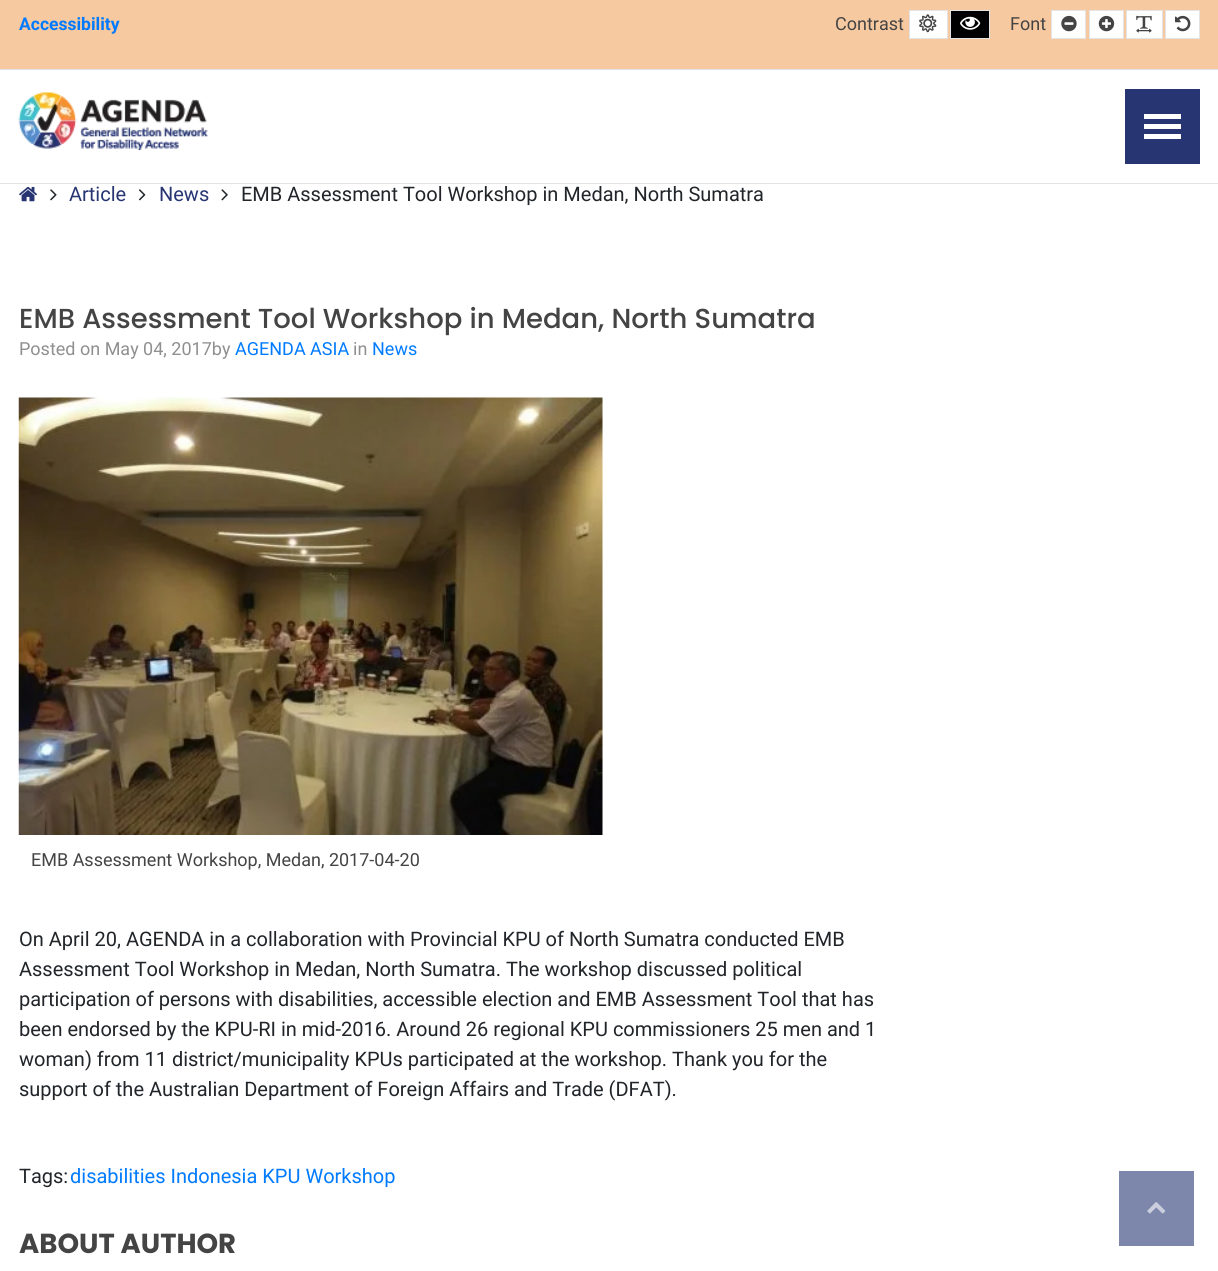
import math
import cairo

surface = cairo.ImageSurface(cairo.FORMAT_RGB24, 1218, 1271)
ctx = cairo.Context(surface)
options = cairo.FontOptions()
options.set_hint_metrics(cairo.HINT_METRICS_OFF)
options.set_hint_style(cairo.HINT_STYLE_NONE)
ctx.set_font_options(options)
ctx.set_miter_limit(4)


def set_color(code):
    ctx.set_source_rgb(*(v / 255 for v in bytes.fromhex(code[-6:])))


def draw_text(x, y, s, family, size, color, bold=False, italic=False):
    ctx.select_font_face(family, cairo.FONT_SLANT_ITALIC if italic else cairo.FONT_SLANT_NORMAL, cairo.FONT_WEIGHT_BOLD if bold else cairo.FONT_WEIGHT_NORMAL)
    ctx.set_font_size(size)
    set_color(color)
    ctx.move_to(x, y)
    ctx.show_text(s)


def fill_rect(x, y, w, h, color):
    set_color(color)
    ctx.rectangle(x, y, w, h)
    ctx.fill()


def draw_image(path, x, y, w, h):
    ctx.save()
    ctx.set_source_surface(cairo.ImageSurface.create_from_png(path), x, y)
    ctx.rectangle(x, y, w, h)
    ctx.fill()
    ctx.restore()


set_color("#ffffff")
ctx.paint()
fill_rect(0, 183, 1218, 1, "#e3e3e3")
fill_rect(0, 0, 1218, 69, "#f7c9a0")
fill_rect(0, 69, 1218, 1, "#e3e3e3")
draw_text(19, 30, "Accessibility", "Roboto", 17.5, "#007bff", bold=True)
draw_text(835, 30, "Contrast", "Roboto", 18, "#444444")
set_color("#ffffff")
ctx.rectangle(909.5, 10.5, 38, 28)
ctx.fill_preserve()
set_color("#e3e3e3")
ctx.set_line_width(1)
ctx.stroke()
draw_image("assets/img1.png", 919, 14, 18, 19)
set_color("#000000")
ctx.rectangle(950.5, 10.5, 39, 28)
ctx.fill_preserve()
set_color("#e3e3e3")
ctx.stroke()
draw_image("assets/img2.png", 960, 16, 21, 14)
draw_text(1010, 30, "Font", "Roboto", 18, "#444444")
set_color("#ffffff")
ctx.rectangle(1051.5, 10.5, 34, 28)
ctx.fill_preserve()
set_color("#e3e3e3")
ctx.stroke()
draw_image("assets/img3.png", 1061, 15, 16, 17)
set_color("#ffffff")
ctx.rectangle(1089.5, 10.5, 34, 28)
ctx.fill_preserve()
set_color("#e3e3e3")
ctx.stroke()
draw_image("assets/img4.png", 1098, 15, 17, 17)
set_color("#ffffff")
ctx.rectangle(1126.5, 10.5, 36, 28)
ctx.fill_preserve()
set_color("#e3e3e3")
ctx.stroke()
draw_image("assets/img5.png", 1136, 15, 16, 18)
set_color("#ffffff")
ctx.rectangle(1165.5, 10.5, 34, 28)
ctx.fill_preserve()
set_color("#e3e3e3")
ctx.stroke()
draw_image("assets/img6.png", 1175, 15, 16, 17)
draw_image("assets/img7.png", 18, 92, 190, 58)
fill_rect(1125, 89, 75, 75, "#273573")
fill_rect(1144, 114, 37, 5, "#ffffff")
fill_rect(1144, 124, 37, 5, "#ffffff")
fill_rect(1144, 134, 37, 5, "#ffffff")
draw_image("assets/img8.png", 19, 186, 18, 16)
draw_image("assets/img9.png", 50, 189, 7, 12)
draw_text(69, 201, "Article", "Roboto", 20, "#273573")
draw_image("assets/img10.png", 138, 189, 8, 12)
draw_text(159, 201, "News", "Roboto", 20, "#273573")
draw_image("assets/img11.png", 221, 189, 7, 12)
draw_text(241, 201, "EMB Assessment Tool Workshop in Medan, North Sumatra", "Roboto", 20, "#212529")
draw_text(19, 328, "EMB Assessment Tool Workshop in Medan, North Sumatra", "Poppins Medium", 27.5, "#444444")
draw_text(19, 355, "Posted on May 04, 2017by", "Roboto", 18, "#8f8f8f")
draw_text(235, 355, "AGENDA ASIA", "Roboto", 18, "#007bff")
draw_text(353, 355, "in", "Roboto", 18, "#8f8f8f")
draw_text(372, 355, "News", "Roboto", 18, "#007bff")
draw_image("assets/img12.png", 18, 397, 585, 438)
draw_text(31, 866, "EMB Assessment Workshop, Medan, 2017-04-20", "Roboto", 18, "#444444")
draw_text(19, 946, "On April 20, AGENDA in a collaboration with Provincial KPU of North Sumatra conducted EMB", "Roboto", 20, "#212529")
draw_text(19, 976, "Assessment Tool Workshop in Medan, North Sumatra. The workshop discussed political", "Roboto", 20, "#212529")
draw_text(19, 1006, "participation of persons with disabilities, accessible election and EMB Assessment Tool that has", "Roboto", 20, "#212529")
draw_text(19, 1036, "been endorsed by the KPU-RI in mid-2016. Around 26 regional KPU commissioners 25 men and 1", "Roboto", 20, "#212529")
draw_text(19, 1066, "woman) from 11 district/municipality KPUs participated at the workshop. Thank you for the", "Roboto", 20, "#212529")
draw_text(19, 1096, "support of the Australian Department of Foreign Affairs and Trade (DFAT).", "Roboto", 20, "#212529")
draw_text(19, 1183, "Tags:", "Roboto", 20, "#212529")
draw_text(70, 1183, "disabilities Indonesia KPU Workshop", "Roboto", 20, "#007bff")
draw_text(19, 1253, "ABOUT AUTHOR", "Poppins", 27.5, "#444444", bold=True)
fill_rect(1119, 1171, 75, 75, "#7d86ab")
draw_image("assets/img13.png", 1147, 1202, 19, 12)
surface.write_to_png("output.png")
